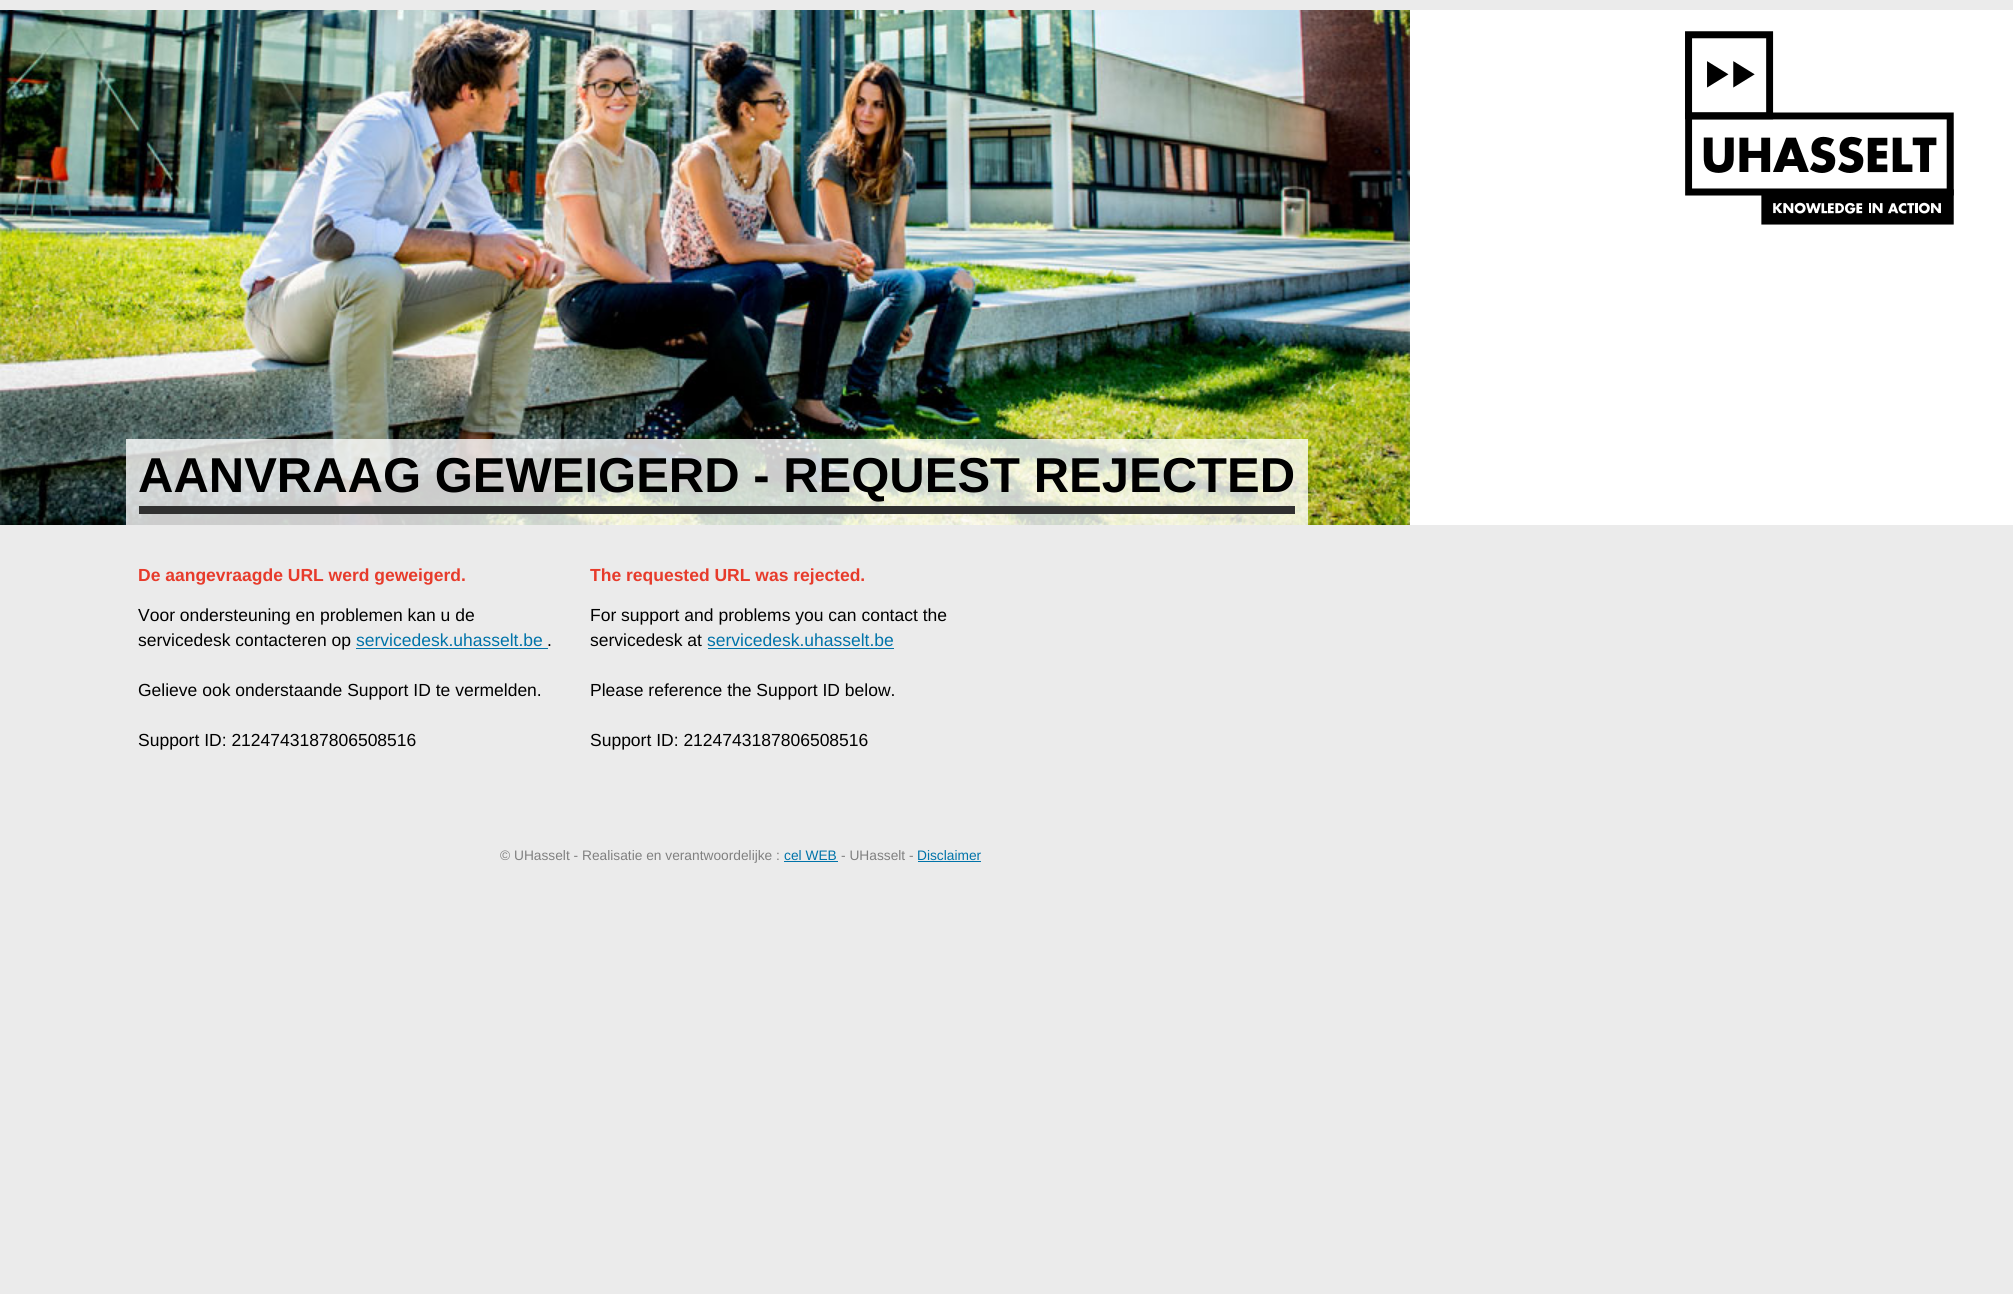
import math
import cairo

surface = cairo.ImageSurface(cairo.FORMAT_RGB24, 2013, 1294)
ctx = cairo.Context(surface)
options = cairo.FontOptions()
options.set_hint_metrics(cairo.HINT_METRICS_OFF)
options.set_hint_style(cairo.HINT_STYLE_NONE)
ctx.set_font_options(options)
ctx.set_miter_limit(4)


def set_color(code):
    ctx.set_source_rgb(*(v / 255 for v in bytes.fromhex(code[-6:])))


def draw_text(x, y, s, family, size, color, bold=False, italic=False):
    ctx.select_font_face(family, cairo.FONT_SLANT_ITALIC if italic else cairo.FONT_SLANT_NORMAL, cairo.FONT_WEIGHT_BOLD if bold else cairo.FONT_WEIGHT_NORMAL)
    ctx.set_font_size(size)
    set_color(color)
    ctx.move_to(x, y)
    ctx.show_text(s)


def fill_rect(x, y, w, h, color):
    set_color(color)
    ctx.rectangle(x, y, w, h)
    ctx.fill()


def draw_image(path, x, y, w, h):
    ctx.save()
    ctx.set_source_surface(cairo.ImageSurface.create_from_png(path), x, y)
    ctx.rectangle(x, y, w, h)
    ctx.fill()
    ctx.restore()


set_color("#ebebeb")
ctx.paint()
fill_rect(1410, 10, 603, 515, "#ffffff")
draw_image("assets/img1.png", 0, 10, 1410, 515)
draw_image("assets/img2.png", 1685, 31, 269, 194)
ctx.set_source_rgba(1, 1, 1, 0.8)
ctx.rectangle(126, 439, 1182, 86)
ctx.fill()
fill_rect(139, 506, 1156, 8, "#303030")
draw_text(138, 492, "AANVRAAG GEWEIGERD - REQUEST REJECTED", "Liberation Sans", 49, "#000000", bold=True)
draw_text(138, 581, "De aangevraagde URL werd geweigerd.", "Liberation Sans", 17.5, "#e73b2b", bold=True)
draw_text(590, 581, "The requested URL was rejected.", "Liberation Sans", 17.5, "#e73b2b", bold=True)
draw_text(138, 621, "Voor ondersteuning en problemen kan u de", "Liberation Sans", 17.5, "#000000")
draw_text(590, 621, "For support and problems you can contact the", "Liberation Sans", 17.5, "#000000")
draw_text(138, 646, "servicedesk contacteren op", "Liberation Sans", 17.5, "#000000")
draw_text(356, 646, "servicedesk.uhasselt.be", "Liberation Sans", 17.5, "#0073a9")
fill_rect(356, 648, 192, 1, "#0073a9")
draw_text(547, 646, ".", "Liberation Sans", 17.5, "#000000")
draw_text(590, 646, "servicedesk at", "Liberation Sans", 17.5, "#000000")
draw_text(707, 646, "servicedesk.uhasselt.be", "Liberation Sans", 17.5, "#0073a9")
fill_rect(708, 648, 186, 1, "#0073a9")
draw_text(138, 696, "Gelieve ook onderstaande Support ID te vermelden.", "Liberation Sans", 17.5, "#000000")
draw_text(590, 696, "Please reference the Support ID below.", "Liberation Sans", 17.5, "#000000")
draw_text(138, 746, "Support ID: 2124743187806508516", "Liberation Sans", 17.5, "#000000")
draw_text(590, 746, "Support ID: 2124743187806508516", "Liberation Sans", 17.5, "#000000")
draw_text(500, 860, "© UHasselt - Realisatie en verantwoordelijke :", "Liberation Sans", 13.75, "#808080")
draw_text(784, 860, "cel WEB", "Liberation Sans", 13.75, "#0073a9")
fill_rect(784, 861, 54, 1, "#0073a9")
draw_text(841, 860, "- UHasselt -", "Liberation Sans", 13.75, "#808080")
draw_text(917, 860, "Disclaimer", "Liberation Sans", 13.75, "#0073a9")
fill_rect(918, 861, 63, 1, "#0073a9")
surface.write_to_png("output.png")
